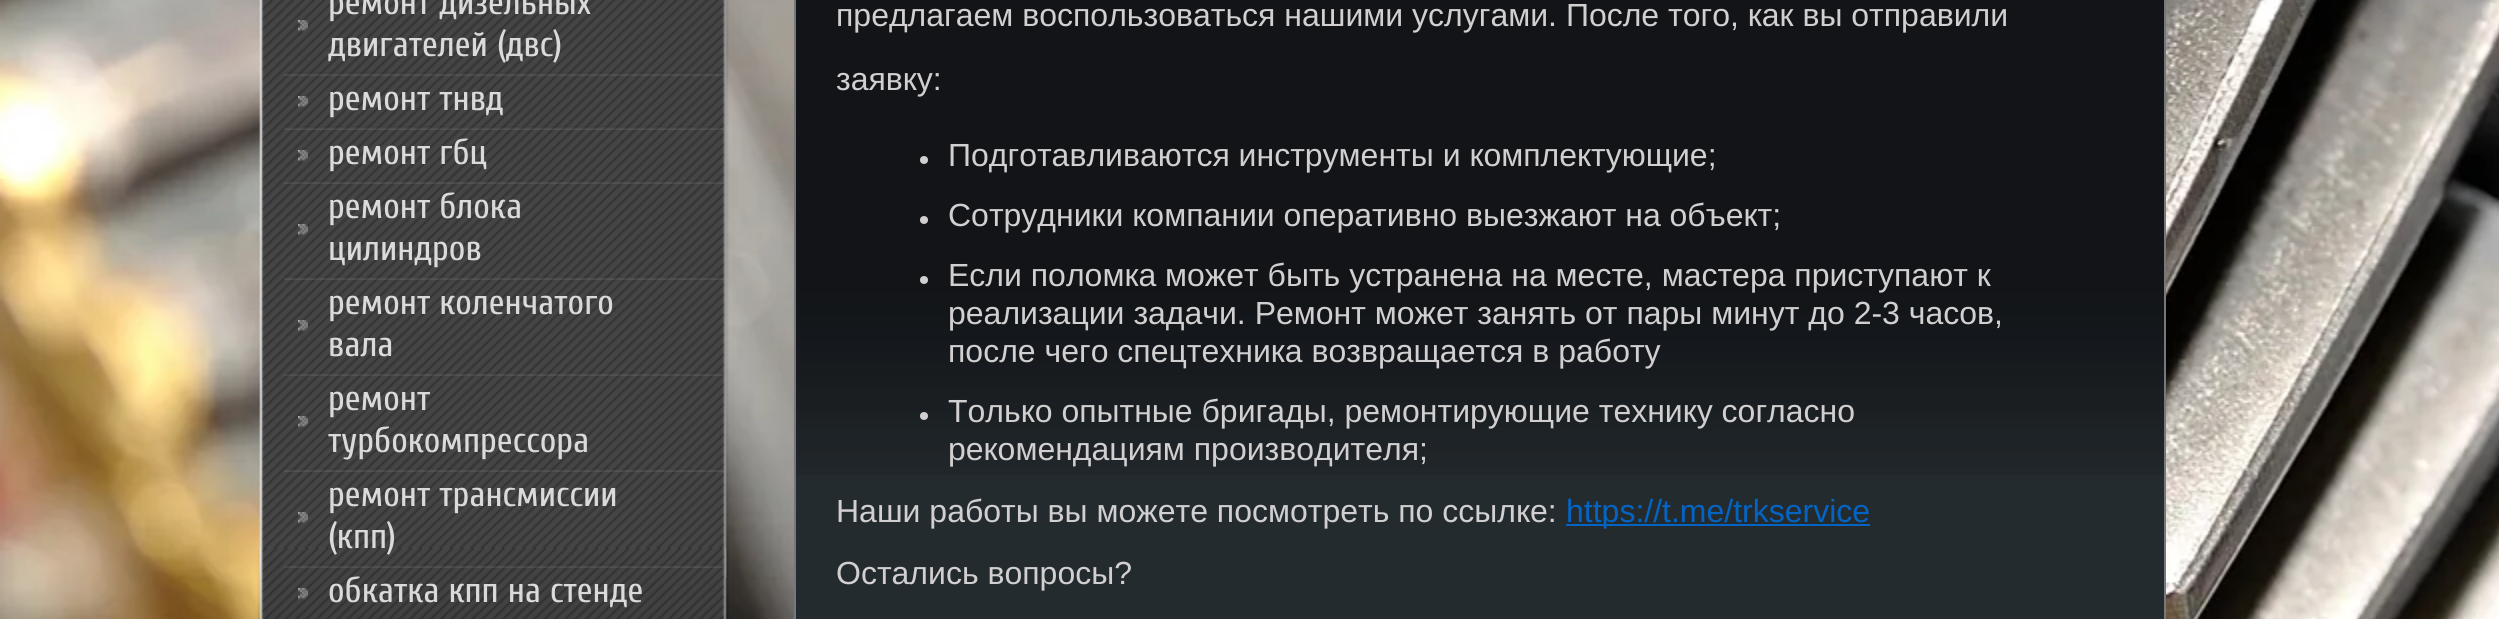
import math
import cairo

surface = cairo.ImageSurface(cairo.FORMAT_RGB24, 2499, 619)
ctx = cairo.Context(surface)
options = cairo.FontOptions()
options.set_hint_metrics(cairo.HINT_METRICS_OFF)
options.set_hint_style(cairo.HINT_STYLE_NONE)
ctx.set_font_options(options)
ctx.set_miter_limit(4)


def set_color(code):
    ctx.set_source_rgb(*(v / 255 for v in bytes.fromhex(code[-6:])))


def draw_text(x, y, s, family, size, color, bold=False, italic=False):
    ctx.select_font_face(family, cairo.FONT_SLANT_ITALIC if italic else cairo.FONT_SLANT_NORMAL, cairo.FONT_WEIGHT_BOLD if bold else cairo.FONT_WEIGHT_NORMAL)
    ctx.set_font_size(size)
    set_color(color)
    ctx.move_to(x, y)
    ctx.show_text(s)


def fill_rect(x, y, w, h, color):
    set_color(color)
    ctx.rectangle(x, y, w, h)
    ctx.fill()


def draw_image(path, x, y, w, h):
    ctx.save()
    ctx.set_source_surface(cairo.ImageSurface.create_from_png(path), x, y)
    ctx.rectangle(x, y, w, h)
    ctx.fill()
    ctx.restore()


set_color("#ffffff")
ctx.paint()
draw_image("assets/img1.png", 0, 0, 2499, 619)
draw_image("assets/img2.png", 259, 0, 470, 578)
draw_image("assets/img3.png", 257, 548, 472, 71)
draw_image("assets/img4.png", 298, 20, 10, 12)
draw_text(328, 14, "ремонт дизельных", "Cuprum", 36, "#dadada")
draw_text(328, 56, "двигателей (двс)", "Cuprum", 36, "#dadada")
draw_image("assets/img5.png", 284, 72, 440, 4)
draw_image("assets/img6.png", 298, 96, 10, 12)
draw_text(328, 110, "ремонт тнвд", "Cuprum", 36, "#dadada")
draw_image("assets/img7.png", 284, 126, 440, 4)
draw_image("assets/img4.png", 298, 150, 10, 12)
draw_text(328, 164, "ремонт гбц", "Cuprum", 36, "#dadada")
draw_image("assets/img8.png", 284, 180, 440, 4)
draw_image("assets/img9.png", 298, 224, 10, 12)
draw_text(328, 218, "ремонт блока", "Cuprum", 36, "#dadada")
draw_text(328, 260, "цилиндров", "Cuprum", 36, "#dadada")
draw_image("assets/img7.png", 284, 276, 440, 4)
draw_image("assets/img4.png", 298, 320, 10, 12)
draw_text(328, 314, "ремонт коленчатого", "Cuprum", 36, "#dadada")
draw_text(328, 356, "вала", "Cuprum", 36, "#dadada")
draw_image("assets/img5.png", 284, 372, 440, 4)
draw_image("assets/img6.png", 298, 416, 10, 12)
draw_text(328, 410, "ремонт", "Cuprum", 36, "#dadada")
draw_text(328, 452, "турбокомпрессора", "Cuprum", 36, "#dadada")
draw_image("assets/img10.png", 284, 468, 440, 4)
draw_image("assets/img11.png", 298, 512, 10, 12)
draw_text(328, 506, "ремонт трансмиссии", "Cuprum", 36, "#dadada")
draw_text(328, 548, "(кпп)", "Cuprum", 36, "#dadada")
draw_image("assets/img12.png", 284, 564, 440, 4)
draw_image("assets/img13.png", 298, 588, 10, 12)
draw_text(328, 602, "обкатка кпп на стенде", "Cuprum", 36, "#dadada")
fill_rect(723, 618, 1, 1, "#4f4f4f")
fill_rect(796, 475, 1368, 144, "#242b2f")
draw_image("assets/img14.png", 796, 0, 1368, 475)
ctx.rectangle(795, -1, 1370, 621)
set_color("#76787b")
ctx.stroke()
draw_text(836, 26, "предлагаем воспользоваться нашими услугами. После того, как вы отправили", "Liberation Sans", 32, "#d1cfd0")
draw_text(836, 90, "заявку:", "Liberation Sans", 32, "#d1cfd0")
ctx.new_path()
ctx.arc(924, 160, 4, 0, 2 * math.pi)
ctx.fill()
draw_text(948, 166, "Подготавливаются инструменты и комплектующие;", "Liberation Sans", 32, "#d1cfd0")
ctx.new_path()
ctx.arc(924, 220, 4, 0, 2 * math.pi)
ctx.fill()
draw_text(948, 226, "Сотрудники компании оперативно выезжают на объект;", "Liberation Sans", 32, "#d1cfd0")
ctx.new_path()
ctx.arc(924, 280, 4, 0, 2 * math.pi)
ctx.fill()
draw_text(948, 286, "Если поломка может быть устранена на месте, мастера приступают к", "Liberation Sans", 32, "#d1cfd0")
draw_text(948, 324, "реализации задачи. Ремонт может занять от пары минут до 2-3 часов,", "Liberation Sans", 32, "#d1cfd0")
draw_text(948, 362, "после чего спецтехника возвращается в работу", "Liberation Sans", 32, "#d1cfd0")
ctx.new_path()
ctx.arc(924, 416, 4, 0, 2 * math.pi)
ctx.fill()
draw_text(948, 422, "Только опытные бригады, ремонтирующие технику согласно", "Liberation Sans", 32, "#d1cfd0")
draw_text(948, 460, "рекомендациям производителя;", "Liberation Sans", 32, "#d1cfd0")
draw_text(836, 522, "Наши работы вы можете посмотреть по ссылке:", "Liberation Sans", 32, "#d1cfd0")
fill_rect(1566, 524, 304, 2, "#0563c1")
draw_text(1566, 522, "https://t.me/trkservice", "Liberation Sans", 32, "#0563c1")
draw_text(836, 584, "Остались вопросы?", "Liberation Sans", 32, "#d1cfd0")
surface.write_to_png("output.png")
